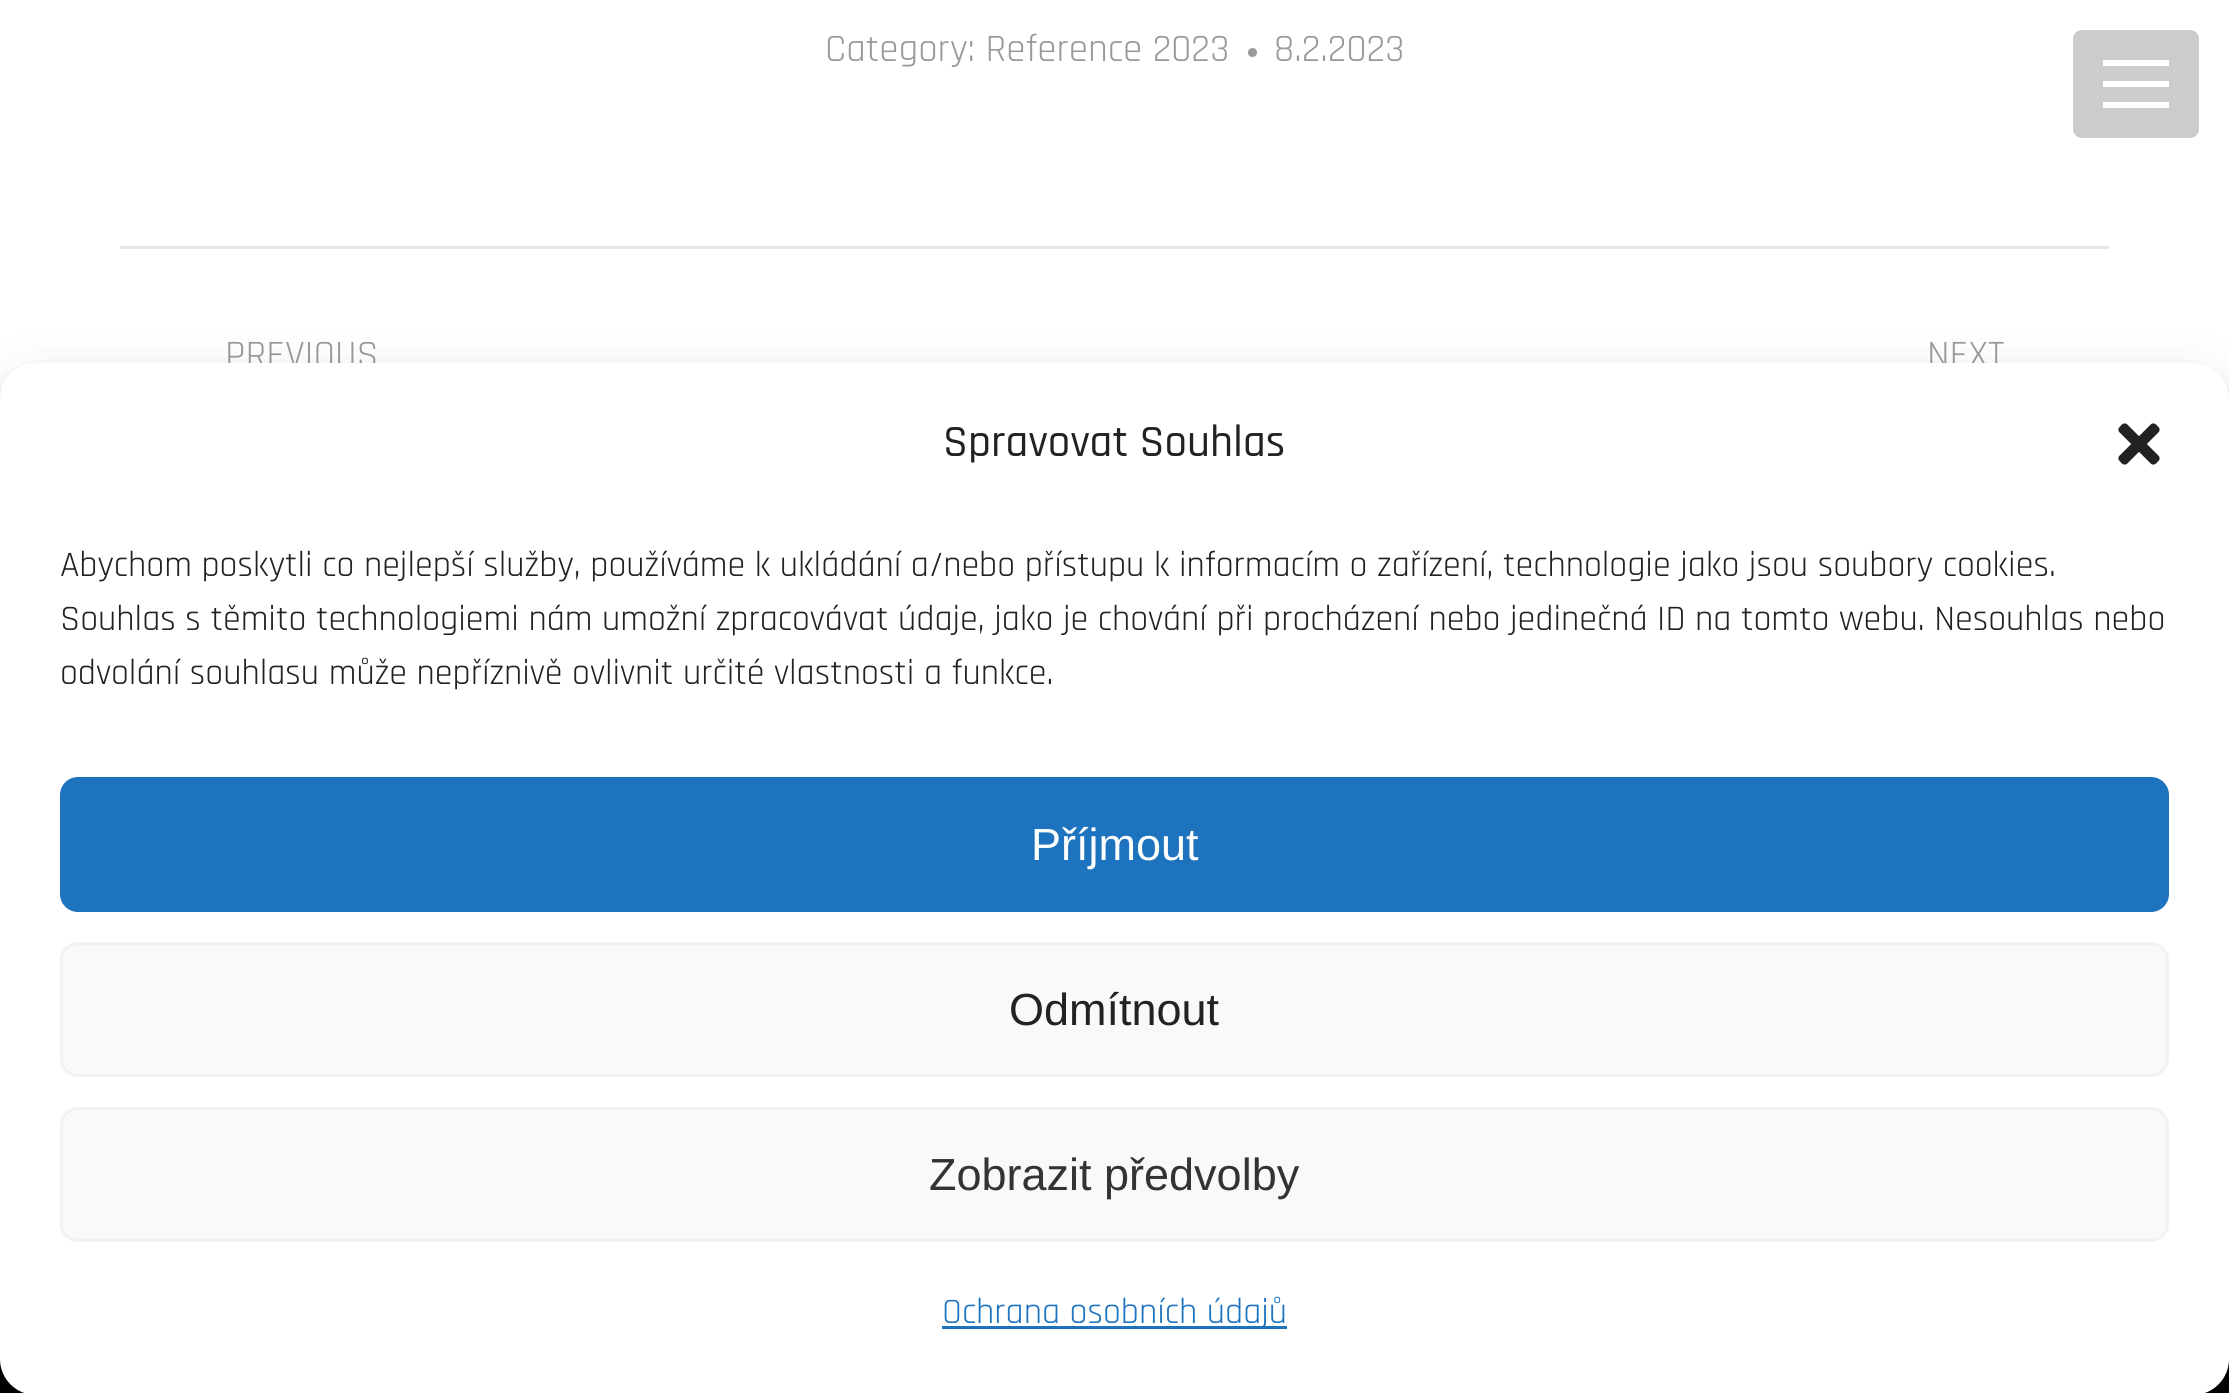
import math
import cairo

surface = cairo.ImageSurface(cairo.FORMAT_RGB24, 2229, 1393)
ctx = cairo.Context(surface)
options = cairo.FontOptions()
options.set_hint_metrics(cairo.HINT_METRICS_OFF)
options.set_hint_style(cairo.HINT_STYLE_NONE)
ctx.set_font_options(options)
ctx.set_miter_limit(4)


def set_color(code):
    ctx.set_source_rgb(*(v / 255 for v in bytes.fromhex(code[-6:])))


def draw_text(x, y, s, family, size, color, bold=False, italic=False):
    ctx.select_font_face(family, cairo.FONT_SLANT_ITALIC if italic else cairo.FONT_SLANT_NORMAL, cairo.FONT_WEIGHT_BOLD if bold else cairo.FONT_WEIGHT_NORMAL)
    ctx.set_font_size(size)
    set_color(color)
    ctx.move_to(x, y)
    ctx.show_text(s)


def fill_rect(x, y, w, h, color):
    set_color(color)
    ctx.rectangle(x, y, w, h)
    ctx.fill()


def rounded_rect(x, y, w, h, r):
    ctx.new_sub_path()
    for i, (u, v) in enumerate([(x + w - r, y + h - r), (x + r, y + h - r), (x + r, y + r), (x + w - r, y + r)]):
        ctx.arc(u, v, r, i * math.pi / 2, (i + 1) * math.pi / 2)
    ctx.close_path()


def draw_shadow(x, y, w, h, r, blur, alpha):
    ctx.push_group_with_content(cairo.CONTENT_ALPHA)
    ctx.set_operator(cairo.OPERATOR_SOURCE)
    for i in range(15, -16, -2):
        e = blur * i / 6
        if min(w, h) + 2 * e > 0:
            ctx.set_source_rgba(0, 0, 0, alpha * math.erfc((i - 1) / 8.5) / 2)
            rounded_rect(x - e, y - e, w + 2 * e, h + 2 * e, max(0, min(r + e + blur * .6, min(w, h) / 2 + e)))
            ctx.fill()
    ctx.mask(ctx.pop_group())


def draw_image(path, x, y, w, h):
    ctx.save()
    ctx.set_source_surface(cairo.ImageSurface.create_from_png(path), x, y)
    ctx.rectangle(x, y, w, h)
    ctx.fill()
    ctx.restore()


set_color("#ffffff")
ctx.paint()
draw_text(825, 61, "Category: Reference 2023", "Rajdhani", 39, "#999999")
ctx.new_path()
ctx.arc(1252.5, 52.5, 4.5, 0, 2 * math.pi)
ctx.fill()
draw_text(1274, 61, "8.2.2023", "Rajdhani", 39, "#999999")
fill_rect(120, 246, 1989, 3, "#e6e6e6")
draw_text(225, 367, "PREVIOUS", "Rajdhani", 39, "#999999")
draw_text(1927, 367, "NEXT", "Rajdhani", 39, "#999999")
set_color("#cccccc")
rounded_rect(2073, 30, 126, 108, 9)
ctx.fill()
fill_rect(2103, 60, 66, 6, "#ffffff")
fill_rect(2103, 81, 66, 6, "#ffffff")
fill_rect(2103, 102, 66, 6, "#ffffff")
fill_rect(0, 1359, 2229, 34, "#000000")
set_color("#000000")
draw_shadow(0, 381, 2229, 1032, 36, 9, 0.23)
draw_shadow(0, 393, 2229, 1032, 36, 30, 0.19)
set_color("#ffffff")
rounded_rect(0, 363, 2229, 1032, 36)
ctx.fill()
draw_text(943, 456, "Spravovat Souhlas", "Rajdhani Medium", 45, "#222222")
draw_image("assets/img1.png", 2118, 423, 42, 42)
draw_text(60, 576, "Abychom poskytli co nejlepší služby, používáme k ukládání a/nebo přístupu k informacím o zařízení, technologie jako jsou soubory cookies.", "Rajdhani", 36, "#222222")
draw_text(60, 630, "Souhlas s těmito technologiemi nám umožní zpracovávat údaje, jako je chování při procházení nebo jedinečná ID na tomto webu. Nesouhlas nebo", "Rajdhani", 36, "#222222")
draw_text(60, 684, "odvolání souhlasu může nepříznivě ovlivnit určité vlastnosti a funkce.", "Rajdhani", 36, "#222222")
set_color("#1e73be")
rounded_rect(61.5, 778.5, 2106, 132, 16.5)
ctx.fill_preserve()
ctx.set_line_width(3)
ctx.stroke()
draw_text(1031, 860, "Příjmout", "Liberation Sans", 45, "#ffffff")
set_color("#f9f9f9")
rounded_rect(61.5, 943.5, 2106, 132, 16.5)
ctx.fill_preserve()
set_color("#f2f2f2")
ctx.stroke()
draw_text(1009, 1025, "Odmítnout", "Liberation Sans", 45, "#222222")
set_color("#f9f9f9")
rounded_rect(61.5, 1108.5, 2106, 132, 16.5)
ctx.fill_preserve()
set_color("#f2f2f2")
ctx.stroke()
draw_text(929, 1190, "Zobrazit předvolby", "Liberation Sans", 45, "#333333")
fill_rect(942, 1326, 345, 3, "#1e73be")
draw_text(942, 1323, "Ochrana osobních údajů", "Rajdhani", 36, "#1e73be")
surface.write_to_png("output.png")
